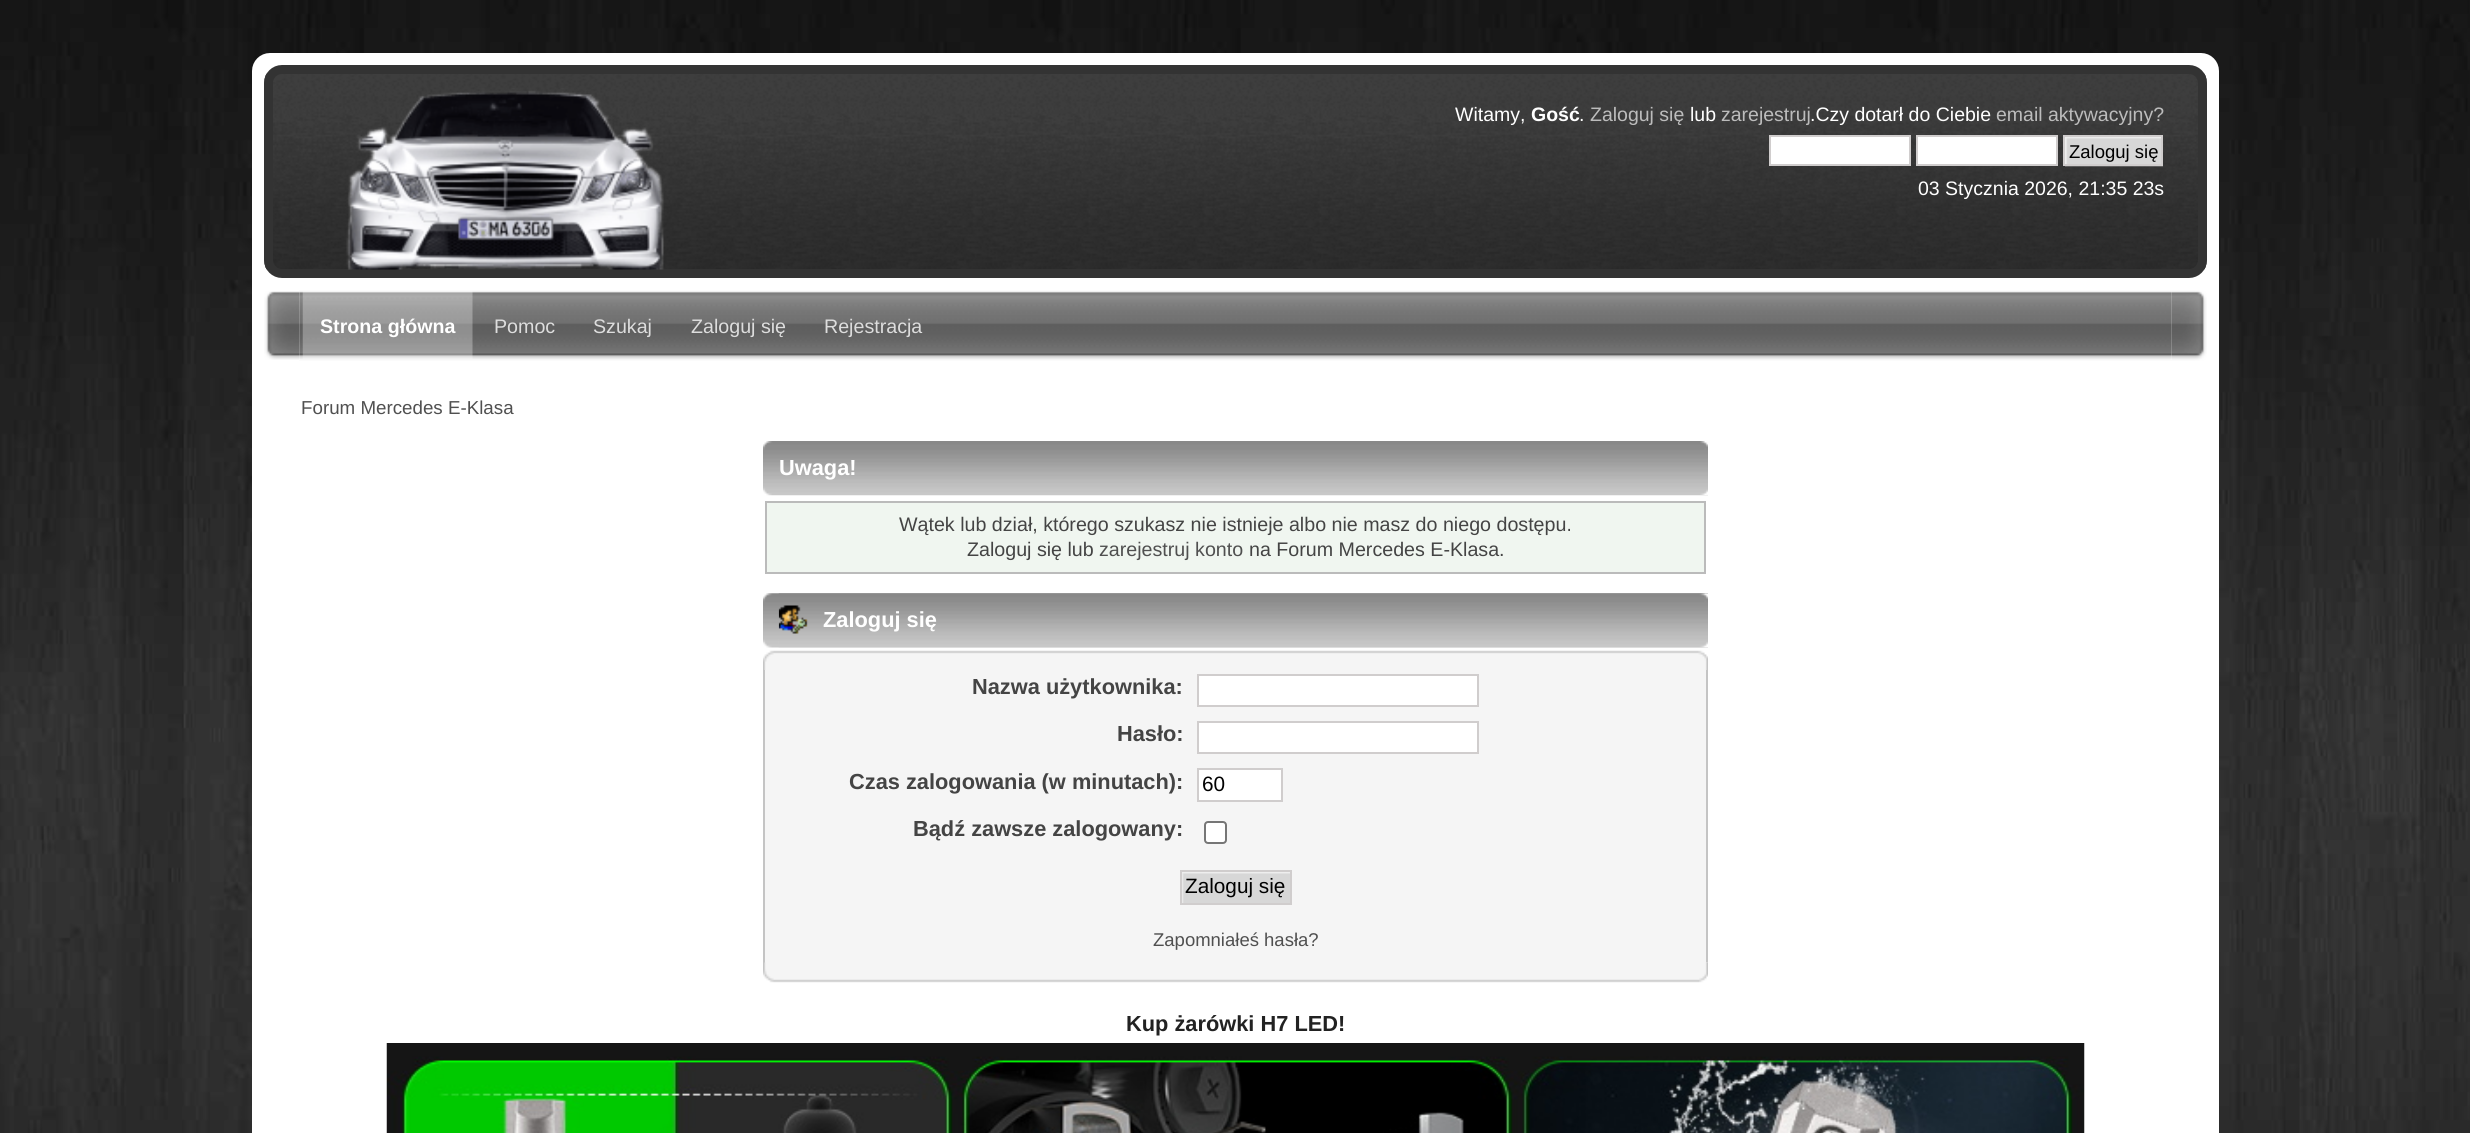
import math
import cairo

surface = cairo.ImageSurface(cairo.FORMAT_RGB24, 2470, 1133)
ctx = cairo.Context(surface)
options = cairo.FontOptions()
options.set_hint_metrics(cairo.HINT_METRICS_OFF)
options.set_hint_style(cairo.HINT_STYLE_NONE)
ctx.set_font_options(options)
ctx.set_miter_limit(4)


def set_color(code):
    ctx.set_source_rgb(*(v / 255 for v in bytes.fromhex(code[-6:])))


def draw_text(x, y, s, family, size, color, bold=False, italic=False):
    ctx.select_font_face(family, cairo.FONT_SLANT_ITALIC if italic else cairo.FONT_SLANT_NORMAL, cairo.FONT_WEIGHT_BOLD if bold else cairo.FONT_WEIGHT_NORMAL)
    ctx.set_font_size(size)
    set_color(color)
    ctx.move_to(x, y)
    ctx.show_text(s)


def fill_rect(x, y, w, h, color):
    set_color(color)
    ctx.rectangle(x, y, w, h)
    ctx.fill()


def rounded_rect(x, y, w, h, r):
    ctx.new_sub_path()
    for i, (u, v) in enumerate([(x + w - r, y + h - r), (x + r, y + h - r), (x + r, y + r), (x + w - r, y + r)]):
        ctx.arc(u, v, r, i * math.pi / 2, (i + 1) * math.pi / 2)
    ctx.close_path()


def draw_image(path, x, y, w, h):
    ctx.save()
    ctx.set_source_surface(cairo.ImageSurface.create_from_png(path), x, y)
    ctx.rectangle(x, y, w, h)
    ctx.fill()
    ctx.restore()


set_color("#ffffff")
ctx.paint()
draw_image("assets/img1.png", 0, 0, 2470, 1133)
set_color("#ffffff")
rounded_rect(258, 59, 1955, 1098, 12)
ctx.fill_preserve()
ctx.set_line_width(12)
ctx.stroke()
draw_image("assets/img2.png", 264, 73, 1943, 197)
rounded_rect(268.5, 69.5, 1934, 204, 13.5)
set_color("#333333")
ctx.set_line_width(9)
ctx.stroke()
draw_image("assets/img3.png", 346, 88, 318, 182)
draw_text(1455, 121, "Witamy,", "Liberation Sans", 19.5, "#ffffff")
draw_text(1531, 121, "Gość", "Liberation Sans", 19.5, "#ffffff", bold=True)
draw_text(1579, 121, ".", "Liberation Sans", 19.5, "#ffffff")
draw_text(1590, 121, "Zaloguj się", "Liberation Sans", 19.5, "#bcbcbc")
draw_text(1690, 121, "lub", "Liberation Sans", 19.5, "#ffffff")
draw_text(1721, 121, "zarejestruj", "Liberation Sans", 19.5, "#bcbcbc")
draw_text(1810, 121, ".Czy dotarł do Ciebie", "Liberation Sans", 19.5, "#ffffff")
draw_text(1996, 121, "email aktywacyjny?", "Liberation Sans", 19.5, "#bcbcbc")
set_color("#ffffff")
ctx.rectangle(1770, 136, 140, 29)
ctx.fill_preserve()
set_color("#d0cdcd")
ctx.set_line_width(2)
ctx.stroke()
set_color("#ffffff")
ctx.rectangle(1917, 136, 140, 29)
ctx.fill_preserve()
set_color("#d0cdcd")
ctx.stroke()
draw_image("assets/img4.png", 2065, 137, 98, 30)
ctx.rectangle(2064, 136, 98, 29)
ctx.stroke()
draw_text(2069, 158, "Zaloguj się", "Liberation Sans", 18.5, "#000000")
draw_text(1918, 195, "03 Stycznia 2026, 21:35 23s", "Liberation Sans", 19.5, "#ffffff")
draw_image("assets/img5.png", 264, 291, 36, 69)
draw_image("assets/img6.png", 2171, 290, 36, 71)
draw_image("assets/img7.png", 299, 290, 1873, 71)
draw_image("assets/img8.png", 302, 291, 171, 68)
draw_text(320, 333, "Strona główna", "Liberation Sans", 19.65, "#ffffff", bold=True)
draw_text(494, 333, "Pomoc", "Liberation Sans", 19.65, "#dddddd")
draw_text(593, 333, "Szukaj", "Liberation Sans", 19.65, "#dddddd")
draw_text(691, 333, "Zaloguj się", "Liberation Sans", 19.65, "#dddddd")
draw_text(824, 333, "Rejestracja", "Liberation Sans", 19.65, "#dddddd")
draw_text(301, 414, "Forum Mercedes E-Klasa", "Liberation Sans", 18.75, "#505050")
draw_image("assets/img9.png", 763, 441, 945, 55)
draw_image("assets/img10.png", 1700, 441, 8, 54)
draw_text(779, 475, "Uwaga!", "Liberation Sans", 21.8, "#ffffff", bold=True)
set_color("#f0f6f0")
ctx.rectangle(766, 502, 939, 71)
ctx.fill_preserve()
set_color("#bbbbbb")
ctx.stroke()
draw_text(899, 531, "Wątek lub dział, którego szukasz nie istnieje albo nie masz do niego dostępu.", "Liberation Sans", 19.65, "#444444")
draw_text(967, 556, "Zaloguj się lub", "Liberation Sans", 19.65, "#444444")
draw_text(1099, 556, "zarejestruj konto", "Liberation Sans", 19.65, "#505050")
draw_text(1249, 556, "na Forum Mercedes E-Klasa.", "Liberation Sans", 19.65, "#444444")
draw_image("assets/img11.png", 763, 593, 945, 55)
draw_image("assets/img12.png", 778, 593, 930, 55)
draw_image("assets/img13.png", 778, 605, 30, 29)
draw_text(823, 627, "Zaloguj się", "Liberation Sans", 21.8, "#ffffff", bold=True)
draw_image("assets/img14.png", 763, 650, 935, 20)
draw_image("assets/img15.png", 1698, 650, 10, 20)
fill_rect(765, 670, 941, 293, "#f5f5f5")
fill_rect(1706, 670, 2, 293, "#c4c4c4")
fill_rect(763, 670, 2, 293, "#c4c4c4")
draw_text(972, 694, "Nazwa użytkownika:", "Liberation Sans", 21.8, "#444444", bold=True)
set_color("#ffffff")
ctx.rectangle(1198, 675, 280, 31)
ctx.fill_preserve()
set_color("#d0cdcd")
ctx.stroke()
draw_text(1117, 741, "Hasło:", "Liberation Sans", 21.8, "#444444", bold=True)
set_color("#ffffff")
ctx.rectangle(1198, 722, 280, 31)
ctx.fill_preserve()
set_color("#d0cdcd")
ctx.stroke()
draw_text(849, 789, "Czas zalogowania (w minutach):", "Liberation Sans", 21.8, "#444444", bold=True)
set_color("#ffffff")
ctx.rectangle(1198, 769, 84, 32)
ctx.fill_preserve()
set_color("#d0cdcd")
ctx.stroke()
draw_text(1202, 791, "60", "Liberation Sans", 20.75, "#000000")
draw_text(913, 836, "Bądź zawsze zalogowany:", "Liberation Sans", 21.8, "#444444", bold=True)
set_color("#ffffff")
rounded_rect(1205, 822, 21, 21, 3)
ctx.fill_preserve()
set_color("#767676")
ctx.stroke()
draw_image("assets/img16.png", 1182, 872, 108, 31)
ctx.rectangle(1181, 871, 110, 33)
set_color("#d0cdcd")
ctx.stroke()
draw_text(1185, 893, "Zaloguj się", "Liberation Sans", 20.75, "#000000")
draw_text(1153, 946, "Zapomniałeś hasła?", "Liberation Sans", 18.5, "#505050")
draw_image("assets/img17.png", 763, 962, 945, 21)
draw_image("assets/img18.png", 1699, 962, 9, 21)
draw_text(1126, 1031, "Kup żarówki H7 LED!", "Liberation Sans", 21.8, "#222222", bold=True)
draw_image("assets/img19.png", 386, 1043, 1699, 90)
surface.write_to_png("output.png")
